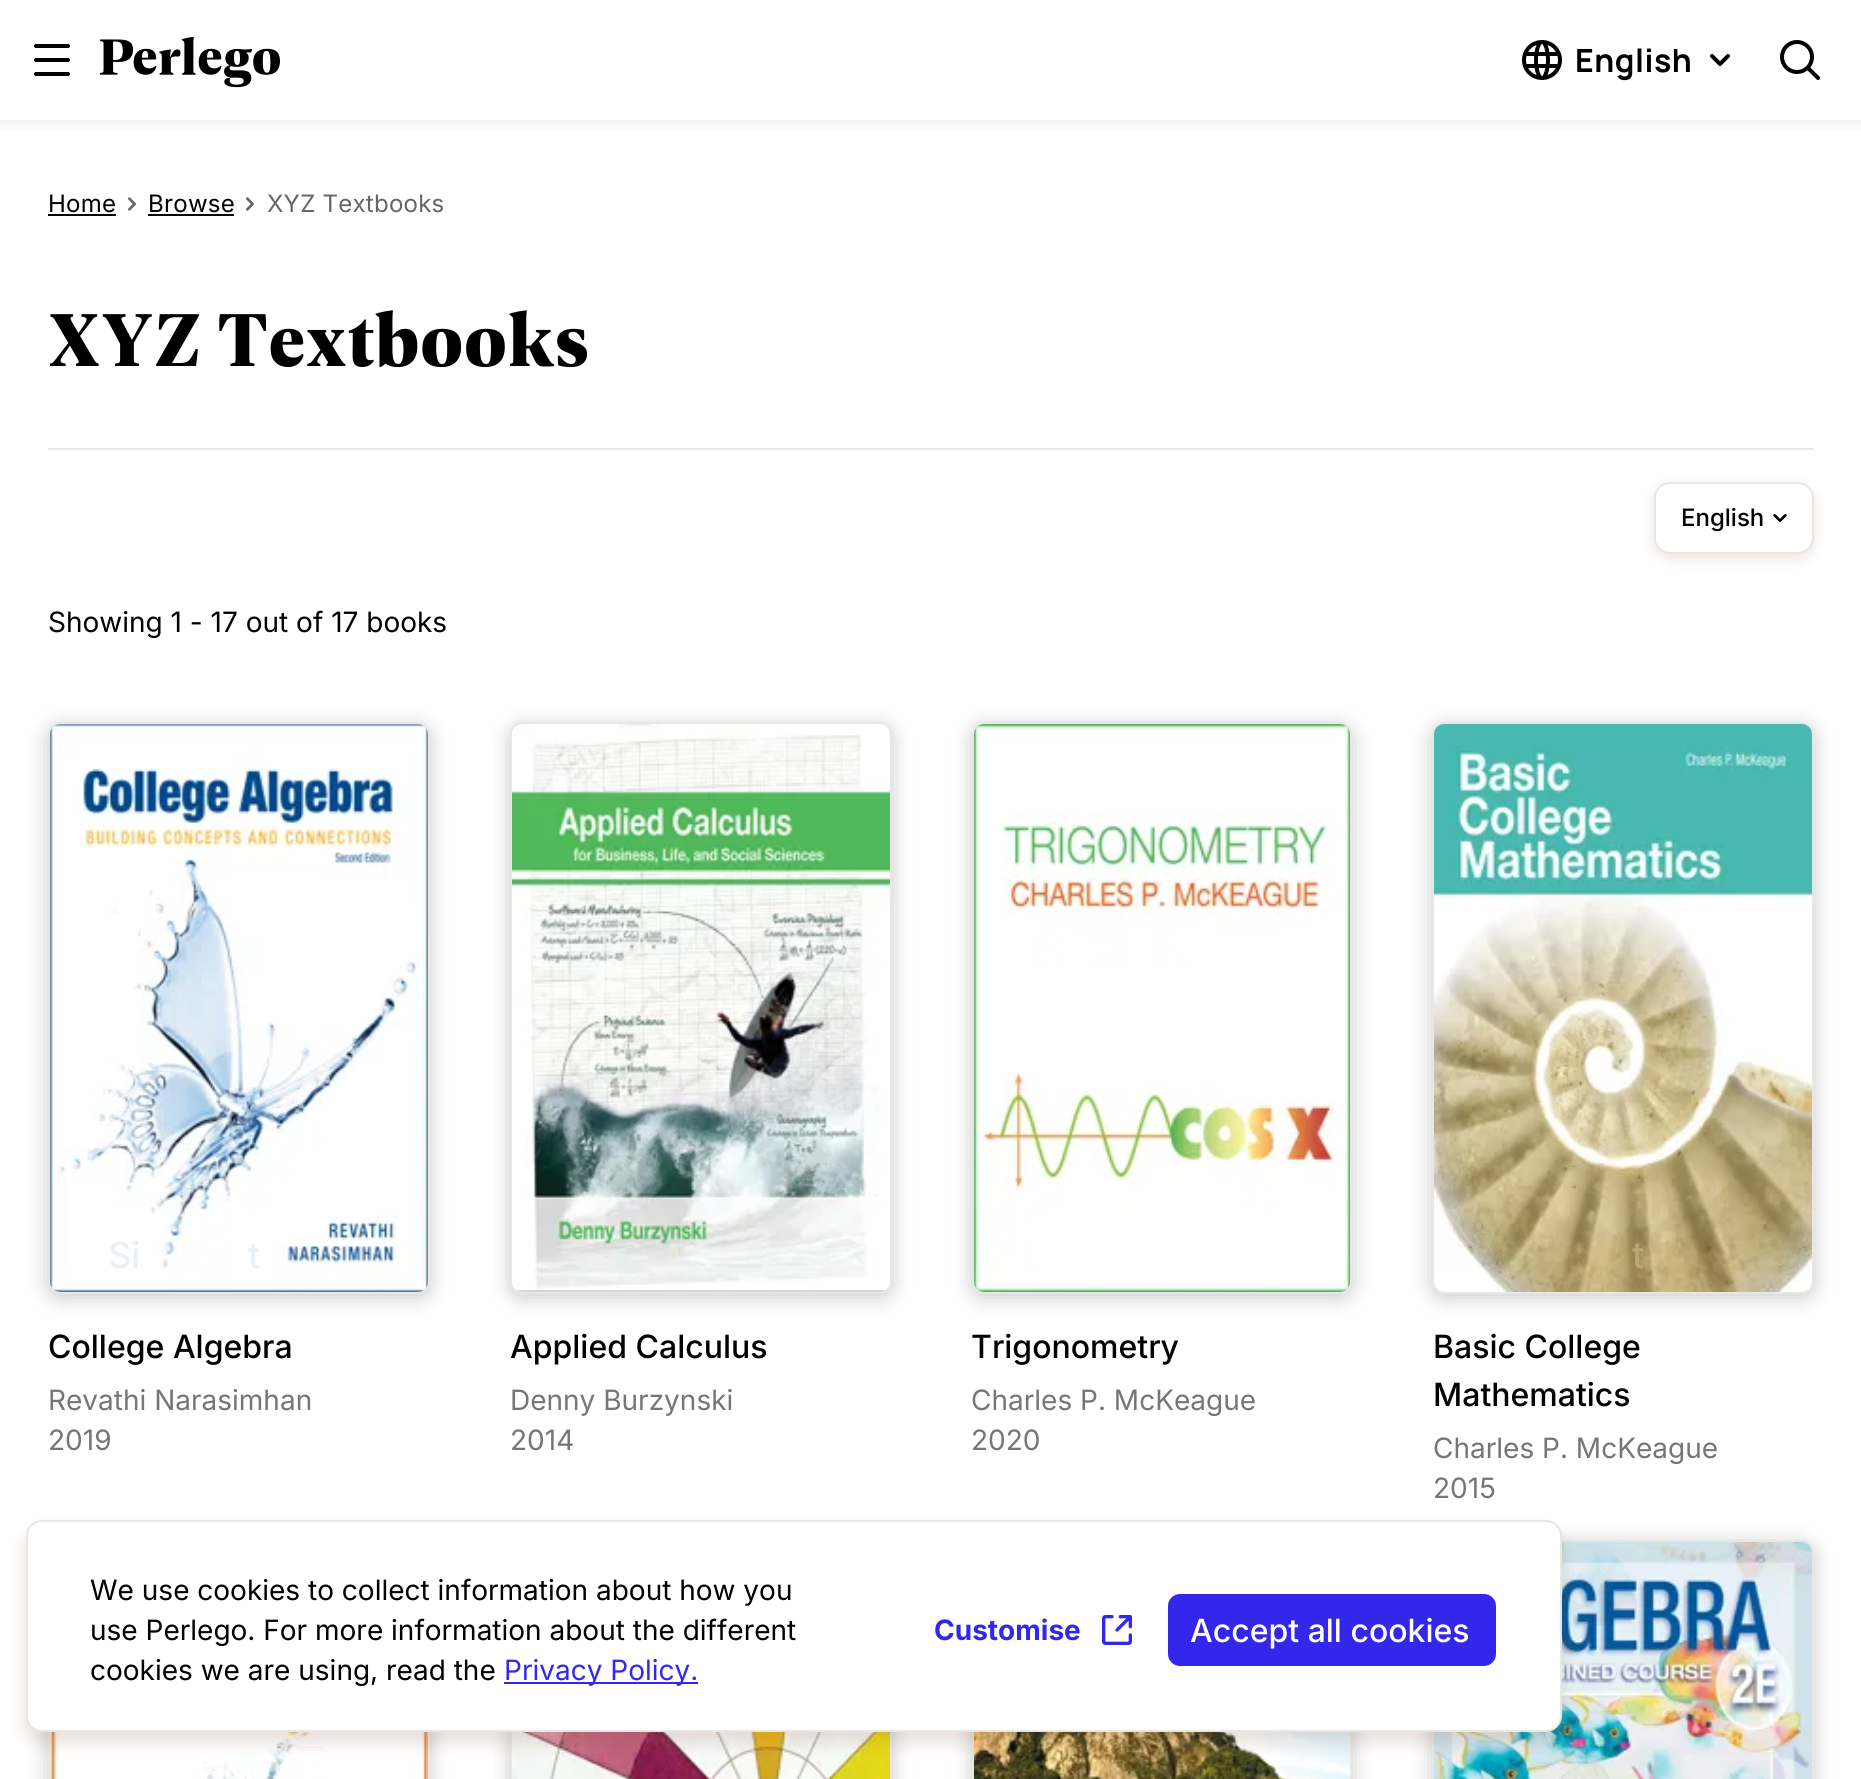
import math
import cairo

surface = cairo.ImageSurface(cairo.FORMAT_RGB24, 1861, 1779)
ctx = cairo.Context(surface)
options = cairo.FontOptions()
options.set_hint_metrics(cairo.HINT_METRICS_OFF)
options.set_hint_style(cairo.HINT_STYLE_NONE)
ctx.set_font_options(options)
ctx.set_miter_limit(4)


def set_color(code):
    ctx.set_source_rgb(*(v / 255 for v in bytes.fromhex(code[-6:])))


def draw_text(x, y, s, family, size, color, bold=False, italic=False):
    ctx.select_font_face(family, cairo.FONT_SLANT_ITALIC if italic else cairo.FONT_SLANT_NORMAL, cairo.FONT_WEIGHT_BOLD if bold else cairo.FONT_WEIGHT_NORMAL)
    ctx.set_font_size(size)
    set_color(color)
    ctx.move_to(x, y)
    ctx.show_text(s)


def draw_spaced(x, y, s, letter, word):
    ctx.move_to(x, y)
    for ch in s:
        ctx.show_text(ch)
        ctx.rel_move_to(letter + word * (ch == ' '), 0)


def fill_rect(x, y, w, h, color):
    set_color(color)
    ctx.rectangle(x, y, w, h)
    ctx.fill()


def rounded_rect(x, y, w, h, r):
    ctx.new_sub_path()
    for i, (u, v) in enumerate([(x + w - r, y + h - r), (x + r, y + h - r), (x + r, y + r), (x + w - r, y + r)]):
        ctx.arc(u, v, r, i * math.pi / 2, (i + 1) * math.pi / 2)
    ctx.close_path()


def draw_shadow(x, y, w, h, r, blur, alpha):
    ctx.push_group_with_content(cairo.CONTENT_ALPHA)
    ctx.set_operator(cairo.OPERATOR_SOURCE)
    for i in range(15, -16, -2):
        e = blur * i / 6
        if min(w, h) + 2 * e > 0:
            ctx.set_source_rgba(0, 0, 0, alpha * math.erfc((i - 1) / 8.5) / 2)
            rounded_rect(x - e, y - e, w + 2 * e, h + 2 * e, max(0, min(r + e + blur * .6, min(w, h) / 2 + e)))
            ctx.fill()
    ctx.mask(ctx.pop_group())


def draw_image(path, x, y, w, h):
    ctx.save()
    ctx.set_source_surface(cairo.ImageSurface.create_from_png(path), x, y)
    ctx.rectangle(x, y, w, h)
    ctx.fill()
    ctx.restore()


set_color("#ffffff")
ctx.paint()
ctx.save()
ctx.rectangle(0, 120, 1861, 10)
ctx.clip()
set_color("#66361b")
draw_shadow(0, 4, 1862, 120, 0, 7, 0.1)
ctx.restore()
draw_image("assets/img1.png", 34, 44, 36, 32)
draw_image("assets/img2.png", 100, 36, 180, 52)
draw_image("assets/img3.png", 1522, 40, 40, 40)
ctx.select_font_face("Manrope", cairo.FONT_SLANT_NORMAL, cairo.FONT_WEIGHT_BOLD)
ctx.set_font_size(32)
set_color("#000000")
draw_spaced(1575, 72, "English", 0.5, 0)
draw_image("assets/img4.png", 1710, 54, 20, 12)
draw_image("assets/img5.png", 1780, 40, 40, 40)
ctx.select_font_face("Inter")
ctx.set_font_size(24)
draw_spaced(48, 212, "Home", 0.25, 0)
fill_rect(48, 214, 68, 2, "#000000")
draw_image("assets/img6.png", 128, 197, 8, 14)
draw_spaced(148, 212, "Browse", 0.25, 0)
fill_rect(148, 214, 86, 2, "#000000")
draw_image("assets/img6.png", 246, 197, 8, 14)
set_color("#666565")
draw_spaced(267, 212, "XYZ Textbooks", 0.25, 0)
ctx.select_font_face("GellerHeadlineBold", cairo.FONT_SLANT_NORMAL, cairo.FONT_WEIGHT_BOLD)
ctx.set_font_size(80)
set_color("#000000")
draw_spaced(48, 366, "XYZ Textbooks", 0.75, 0)
fill_rect(48, 448, 1766, 2, "#e9e7e3")
set_color("#903007")
draw_shadow(1654, 486, 160, 72, 16, 7, 0.08)
set_color("#4e4e4e")
draw_shadow(1654, 488, 160, 72, 16, 7, 0.06)
set_color("#ffffff")
rounded_rect(1655, 483, 158, 70, 15)
ctx.fill_preserve()
set_color("#e9e7e3")
ctx.stroke()
draw_text(1681, 526, "English", "Inter Medium", 24, "#000000")
draw_image("assets/img7.png", 1773, 514, 14, 8)
draw_text(48, 632, "Showing 1 - 17 out of 17 books", "Inter", 28, "#000000")
set_color("#47484a")
draw_shadow(48, 726, 382, 572, 12, 10, 0.3)
rounded_rect(49, 723, 380, 570, 11)
set_color("#e9e7e3")
ctx.stroke()
draw_image("assets/img8.png", 50, 724, 378, 568)
draw_text(108, 1268, "Si", "Inter Medium", 36, "#eaf0f4")
draw_text(248, 1268, "t", "Inter Medium", 36, "#eaf0f4")
draw_text(48, 1358, "College Algebra", "Inter Medium", 32, "#000000")
draw_text(48, 1410, "Revathi Narasimhan", "Inter", 28, "#777674")
draw_text(48, 1450, "2019", "Inter", 28, "#777674")
set_color("#47484a")
draw_shadow(510, 726, 382, 572, 12, 10, 0.3)
rounded_rect(511, 723, 380, 570, 11)
set_color("#e9e7e3")
ctx.stroke()
draw_image("assets/img9.png", 512, 724, 378, 566)
draw_text(510, 1358, "Applied Calculus", "Inter Medium", 32, "#000000")
draw_text(510, 1410, "Denny Burzynski", "Inter", 28, "#777674")
draw_text(510, 1450, "2014", "Inter", 28, "#777674")
set_color("#47484a")
draw_shadow(972, 726, 380, 572, 12, 10, 0.3)
rounded_rect(973, 723, 378, 570, 11)
set_color("#e9e7e3")
ctx.stroke()
draw_image("assets/img10.png", 974, 724, 376, 568)
draw_text(971, 1358, "Trigonometry", "Inter Medium", 32, "#000000")
draw_text(971, 1410, "Charles P. McKeague", "Inter", 28, "#777674")
draw_text(971, 1450, "2020", "Inter", 28, "#777674")
set_color("#47484a")
draw_shadow(1432, 726, 382, 572, 12, 10, 0.3)
rounded_rect(1433, 723, 380, 570, 11)
set_color("#e9e7e3")
ctx.stroke()
draw_image("assets/img11.png", 1434, 724, 378, 568)
draw_text(1632, 1268, "t", "Inter Medium", 36, "#b9a775")
draw_text(1433, 1358, "Basic College", "Inter Medium", 32, "#000000")
draw_text(1433, 1406, "Mathematics", "Inter Medium", 32, "#000000")
draw_text(1433, 1458, "Charles P. McKeague", "Inter", 28, "#777674")
draw_text(1433, 1498, "2015", "Inter", 28, "#777674")
set_color("#47484a")
draw_shadow(48, 1544, 382, 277, 12, 10, 0.3)
ctx.rectangle(49, 1541, 380, 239)
set_color("#e9e7e3")
ctx.stroke()
draw_image("assets/img12.png", 50, 1732, 378, 47)
set_color("#47484a")
draw_shadow(510, 1544, 382, 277, 12, 10, 0.3)
ctx.rectangle(511, 1541, 380, 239)
set_color("#e9e7e3")
ctx.stroke()
draw_image("assets/img13.png", 512, 1732, 378, 47)
set_color("#47484a")
draw_shadow(972, 1544, 380, 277, 12, 10, 0.3)
ctx.rectangle(973, 1541, 378, 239)
set_color("#e9e7e3")
ctx.stroke()
draw_image("assets/img14.png", 974, 1732, 376, 47)
set_color("#47484a")
draw_shadow(1432, 1544, 382, 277, 12, 10, 0.3)
rounded_rect(1433, 1541, 380, 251, 11)
set_color("#e9e7e3")
ctx.stroke()
draw_image("assets/img15.png", 1434, 1542, 378, 237)
set_color("#903007")
draw_shadow(24, 1528, 1540, 216, 18, 8, 0.08)
set_color("#4e4e4e")
draw_shadow(26, 1532, 1536, 212, 16, 8, 0.08)
set_color("#ffffff")
rounded_rect(27, 1521, 1534, 210, 15)
ctx.fill_preserve()
set_color("#e9e7e3")
ctx.stroke()
draw_text(90, 1600, "We use cookies to collect information about how you", "Inter", 28, "#000000")
draw_text(90, 1640, "use Perlego. For more information about the different", "Inter", 28, "#000000")
draw_text(90, 1680, "cookies we are using, read the", "Inter", 28, "#000000")
fill_rect(504, 1682, 194, 2, "#3327ec")
draw_text(504, 1680, "Privacy Policy.", "Inter", 28, "#3327ec")
draw_text(934, 1640, "Customise", "Inter", 28, "#3327ec", bold=True)
draw_image("assets/img16.png", 1102, 1615, 30, 30)
rounded_rect(1168, 1594, 328, 72, 12)
ctx.fill()
draw_text(1190, 1642, "Accept all cookies", "Inter Medium", 32, "#ffffff")
surface.write_to_png("output.png")
